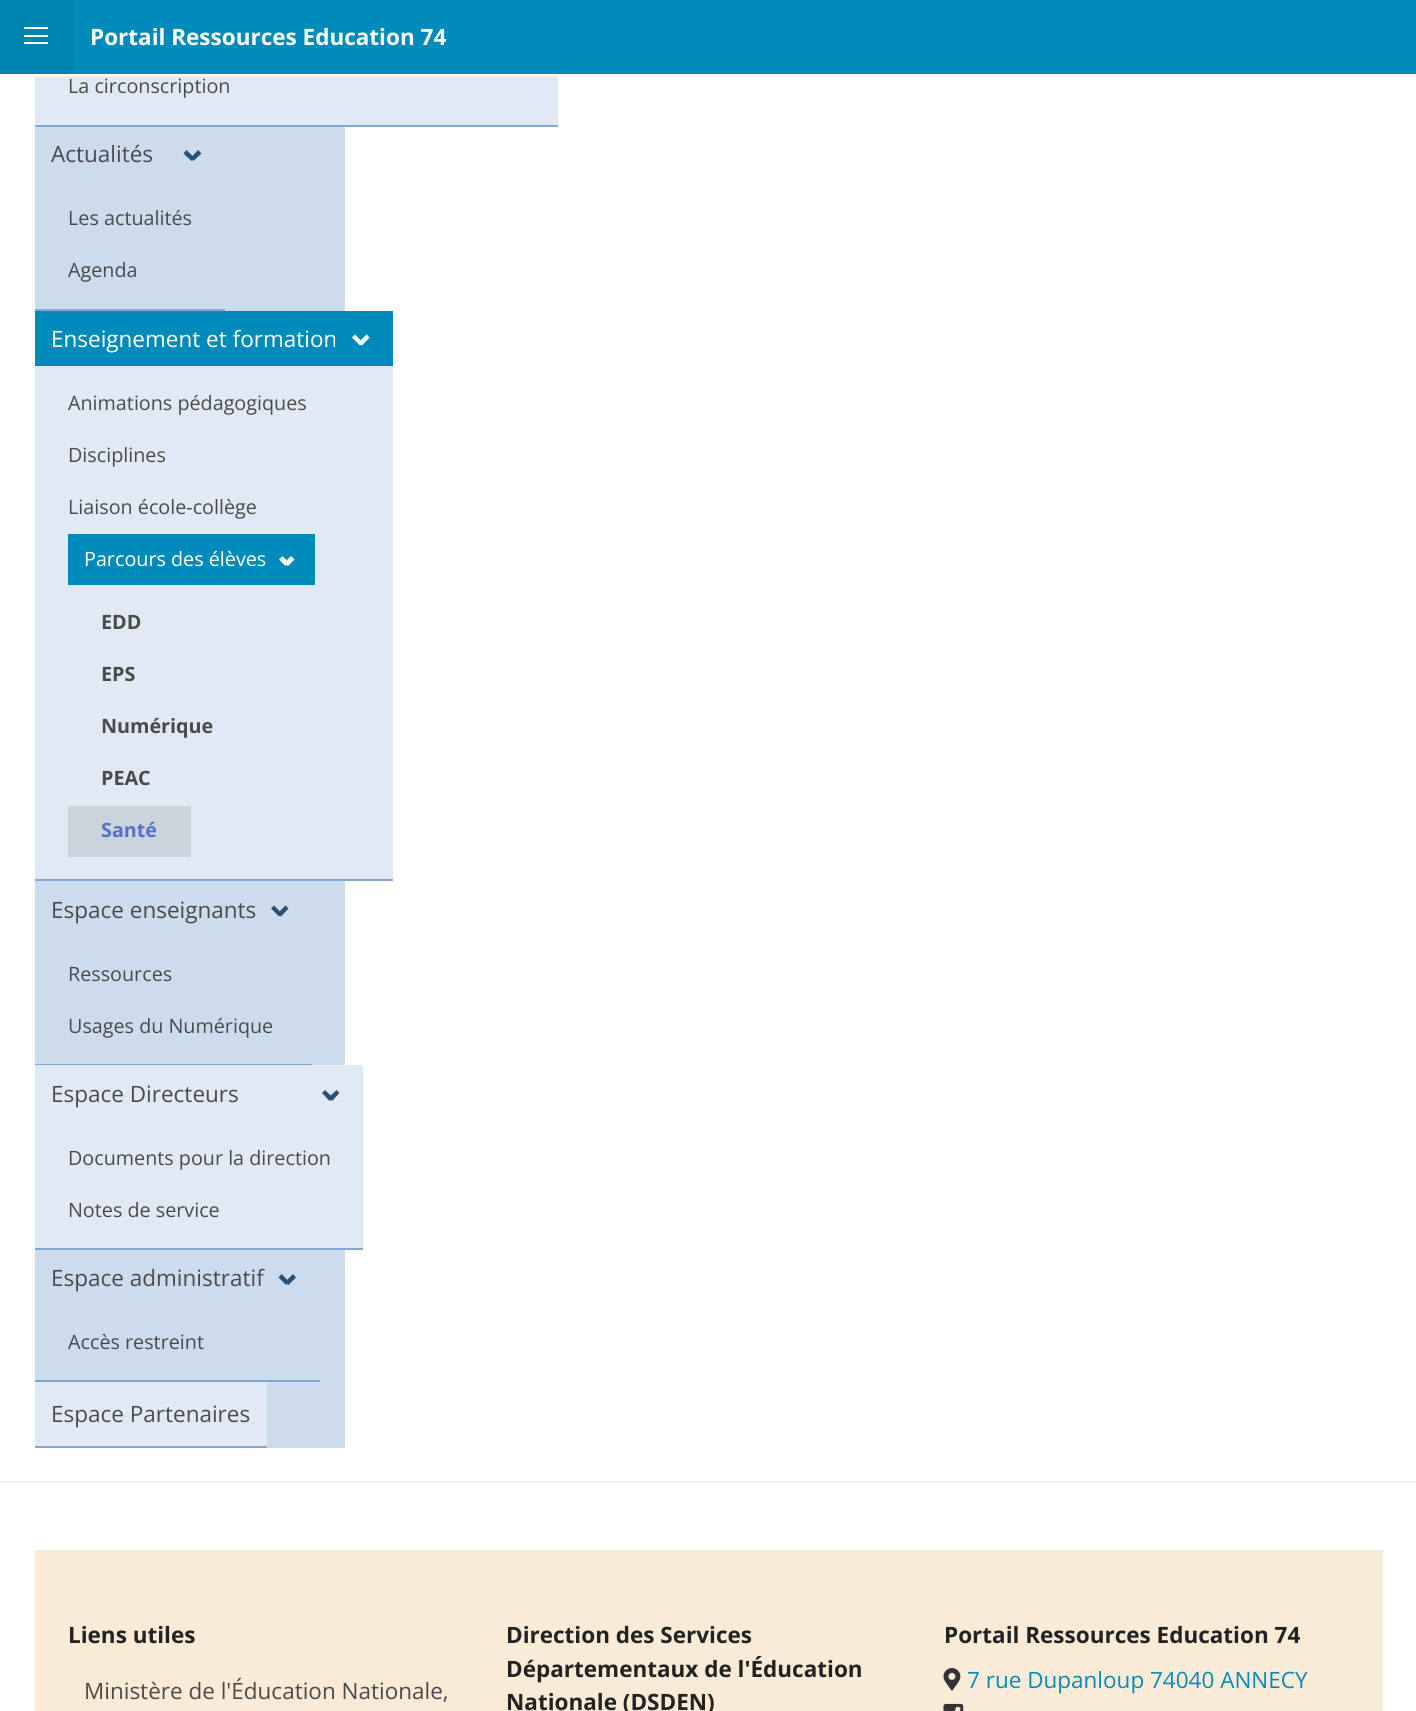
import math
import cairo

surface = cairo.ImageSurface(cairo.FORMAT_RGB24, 1416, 1711)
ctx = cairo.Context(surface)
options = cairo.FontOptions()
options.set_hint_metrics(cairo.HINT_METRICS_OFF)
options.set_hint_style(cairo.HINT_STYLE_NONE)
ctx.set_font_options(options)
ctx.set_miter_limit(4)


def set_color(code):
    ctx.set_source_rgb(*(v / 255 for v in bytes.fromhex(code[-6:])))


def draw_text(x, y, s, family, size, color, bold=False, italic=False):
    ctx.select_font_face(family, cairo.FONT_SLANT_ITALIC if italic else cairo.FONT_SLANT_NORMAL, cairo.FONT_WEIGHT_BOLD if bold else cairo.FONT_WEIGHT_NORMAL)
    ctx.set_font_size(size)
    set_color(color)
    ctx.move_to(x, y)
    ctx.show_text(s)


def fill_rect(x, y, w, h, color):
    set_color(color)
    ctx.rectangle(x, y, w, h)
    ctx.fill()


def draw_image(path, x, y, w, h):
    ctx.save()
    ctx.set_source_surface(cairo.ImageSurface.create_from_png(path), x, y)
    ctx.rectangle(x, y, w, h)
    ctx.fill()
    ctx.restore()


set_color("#ffffff")
ctx.paint()
fill_rect(0, 74, 1416, 3, "#f8f5f0")
fill_rect(74, 0, 1342, 74, "#008cba")
fill_rect(0, 0, 74, 74, "#0085b1")
fill_rect(24, 27, 24, 2, "#ffffff")
fill_rect(24, 35, 24, 2, "#ffffff")
fill_rect(24, 42, 24, 2, "#ffffff")
draw_text(90, 45, "Portail Ressources Education 74", "Open Sans", 22.5, "#ffffff", bold=True)
fill_rect(35, 127, 310, 1321, "#cddced")
fill_rect(35, 77, 523, 48, "#e1eaf4")
fill_rect(35, 125, 523, 2, "#82a8d3")
draw_text(68, 93, "La circonscription", "Open Sans", 19.75, "#4a4a4a")
fill_rect(35, 309, 190, 2, "#82a8d3")
draw_text(51, 162, "Actualités", "Open Sans", 22.5, "#4a4a4a")
set_color("#2b5075")
ctx.new_path()
ctx.move_to(190.5, 158)
ctx.line_to(198, 150)
ctx.line_to(201.5, 153.5)
ctx.line_to(193.5, 161)
ctx.close_path()
ctx.fill()
ctx.new_path()
ctx.move_to(183.5, 153.5)
ctx.line_to(186.5, 150)
ctx.line_to(194.5, 158)
ctx.line_to(191.5, 161)
ctx.close_path()
ctx.fill()
draw_text(68, 225, "Les actualités", "Open Sans", 19.75, "#4a4a4a")
draw_text(68, 277, "Agenda", "Open Sans", 19.75, "#4a4a4a")
fill_rect(35, 366, 358, 513, "#e1eaf4")
fill_rect(35, 879, 358, 2, "#82a8d3")
fill_rect(35, 311, 358, 55, "#008cba")
draw_text(51, 347, "Enseignement et formation", "Open Sans", 22.5, "#ffffff")
ctx.new_path()
ctx.move_to(358.5, 342.5)
ctx.line_to(366.5, 334.5)
ctx.line_to(369.5, 337.5)
ctx.line_to(362, 345.5)
ctx.close_path()
ctx.fill()
ctx.new_path()
ctx.move_to(352, 337.5)
ctx.line_to(355, 334.5)
ctx.line_to(363, 342.5)
ctx.line_to(360, 345.5)
ctx.close_path()
ctx.fill()
draw_text(68, 410, "Animations pédagogiques", "Open Sans", 19.75, "#4a4a4a")
draw_text(68, 462, "Disciplines", "Open Sans", 19.75, "#4a4a4a")
draw_text(68, 514, "Liaison école-collège", "Open Sans", 19.75, "#4a4a4a")
fill_rect(68, 534, 247, 51, "#008cba")
draw_text(84, 566, "Parcours des élèves", "Open Sans", 19.75, "#ffffff")
ctx.new_path()
ctx.move_to(284.5, 562.5)
ctx.line_to(291, 556)
ctx.line_to(294.5, 559.5)
ctx.line_to(288, 566)
ctx.close_path()
ctx.fill()
ctx.new_path()
ctx.move_to(279, 559.5)
ctx.line_to(282.5, 556)
ctx.line_to(289, 562.5)
ctx.line_to(285.5, 566)
ctx.close_path()
ctx.fill()
draw_text(101, 629, "EDD", "Open Sans", 19.75, "#4a4a4a", bold=True)
draw_text(101, 681, "EPS", "Open Sans", 19.75, "#4a4a4a", bold=True)
draw_text(101, 733, "Numérique", "Open Sans", 19.75, "#4a4a4a", bold=True)
draw_text(101, 785, "PEAC", "Open Sans", 19.75, "#4a4a4a", bold=True)
fill_rect(68, 806, 123, 51, "#cbd3dc")
draw_text(101, 837, "Santé", "Open Sans", 19.75, "#5572ca", bold=True)
fill_rect(35, 1064, 277, 1, "#82a8d3")
draw_text(51, 918, "Espace enseignants", "Open Sans", 22.5, "#4a4a4a")
set_color("#2b5075")
ctx.new_path()
ctx.move_to(277.5, 913.5)
ctx.line_to(285.5, 905.5)
ctx.line_to(288.5, 908.5)
ctx.line_to(281, 916.5)
ctx.close_path()
ctx.fill()
ctx.new_path()
ctx.move_to(271, 908.5)
ctx.line_to(274, 905.5)
ctx.line_to(282, 913.5)
ctx.line_to(279, 916.5)
ctx.close_path()
ctx.fill()
draw_text(68, 981, "Ressources", "Open Sans", 19.75, "#4a4a4a")
draw_text(68, 1033, "Usages du Numérique", "Open Sans", 19.75, "#4a4a4a")
fill_rect(35, 1065, 328, 183, "#e1eaf4")
fill_rect(35, 1248, 328, 2, "#82a8d3")
draw_text(51, 1102, "Espace Directeurs", "Open Sans", 22.5, "#4a4a4a")
set_color("#2b5075")
ctx.new_path()
ctx.move_to(328.5, 1097.5)
ctx.line_to(336.5, 1090)
ctx.line_to(339.5, 1093)
ctx.line_to(332, 1101)
ctx.close_path()
ctx.fill()
ctx.new_path()
ctx.move_to(322, 1093)
ctx.line_to(325, 1090)
ctx.line_to(333, 1097.5)
ctx.line_to(329.5, 1101)
ctx.close_path()
ctx.fill()
draw_text(68, 1165, "Documents pour la direction", "Open Sans", 19.75, "#4a4a4a")
draw_text(68, 1217, "Notes de service", "Open Sans", 19.75, "#4a4a4a")
fill_rect(35, 1380, 285, 2, "#82a8d3")
draw_text(51, 1286, "Espace administratif", "Open Sans", 22.5, "#4a4a4a")
set_color("#2b5075")
ctx.new_path()
ctx.move_to(285, 1282)
ctx.line_to(293, 1274)
ctx.line_to(296, 1277.5)
ctx.line_to(288.5, 1285)
ctx.close_path()
ctx.fill()
ctx.new_path()
ctx.move_to(278.5, 1277.5)
ctx.line_to(281.5, 1274)
ctx.line_to(289.5, 1282)
ctx.line_to(286, 1285)
ctx.close_path()
ctx.fill()
draw_text(68, 1349, "Accès restreint", "Open Sans", 19.75, "#4a4a4a")
fill_rect(35, 1382, 232, 64, "#e1eaf4")
fill_rect(35, 1446, 232, 2, "#82a8d3")
draw_text(51, 1422, "Espace Partenaires", "Open Sans", 22.5, "#4a4a4a")
fill_rect(0, 1481, 1416, 2, "#f0f0f0")
fill_rect(35, 1550, 1348, 161, "#faebd7")
draw_text(68, 1643, "Liens utiles", "Open Sans", 22.5, "#222222", bold=True)
draw_text(84, 1699, "Ministère de l'Éducation Nationale,", "Open Sans", 22.5, "#4a4a4a")
draw_text(506, 1643, "Direction des Services", "Open Sans", 22.5, "#222222", bold=True)
draw_text(506, 1677, "Départementaux de l'Éducation", "Open Sans", 22.5, "#222222", bold=True)
draw_text(506, 1710, "Nationale (DSDEN)", "Open Sans", 22.5, "#222222", bold=True)
draw_text(944, 1643, "Portail Ressources Education 74", "Open Sans", 22.5, "#222222", bold=True)
draw_image("assets/img1.png", 943, 1668, 18, 23)
draw_text(967, 1688, "7 rue Dupanloup 74040 ANNECY", "Open Sans", 22.5, "#008cba")
draw_image("assets/img2.png", 943, 1703, 21, 8)
surface.write_to_png("output.png")
